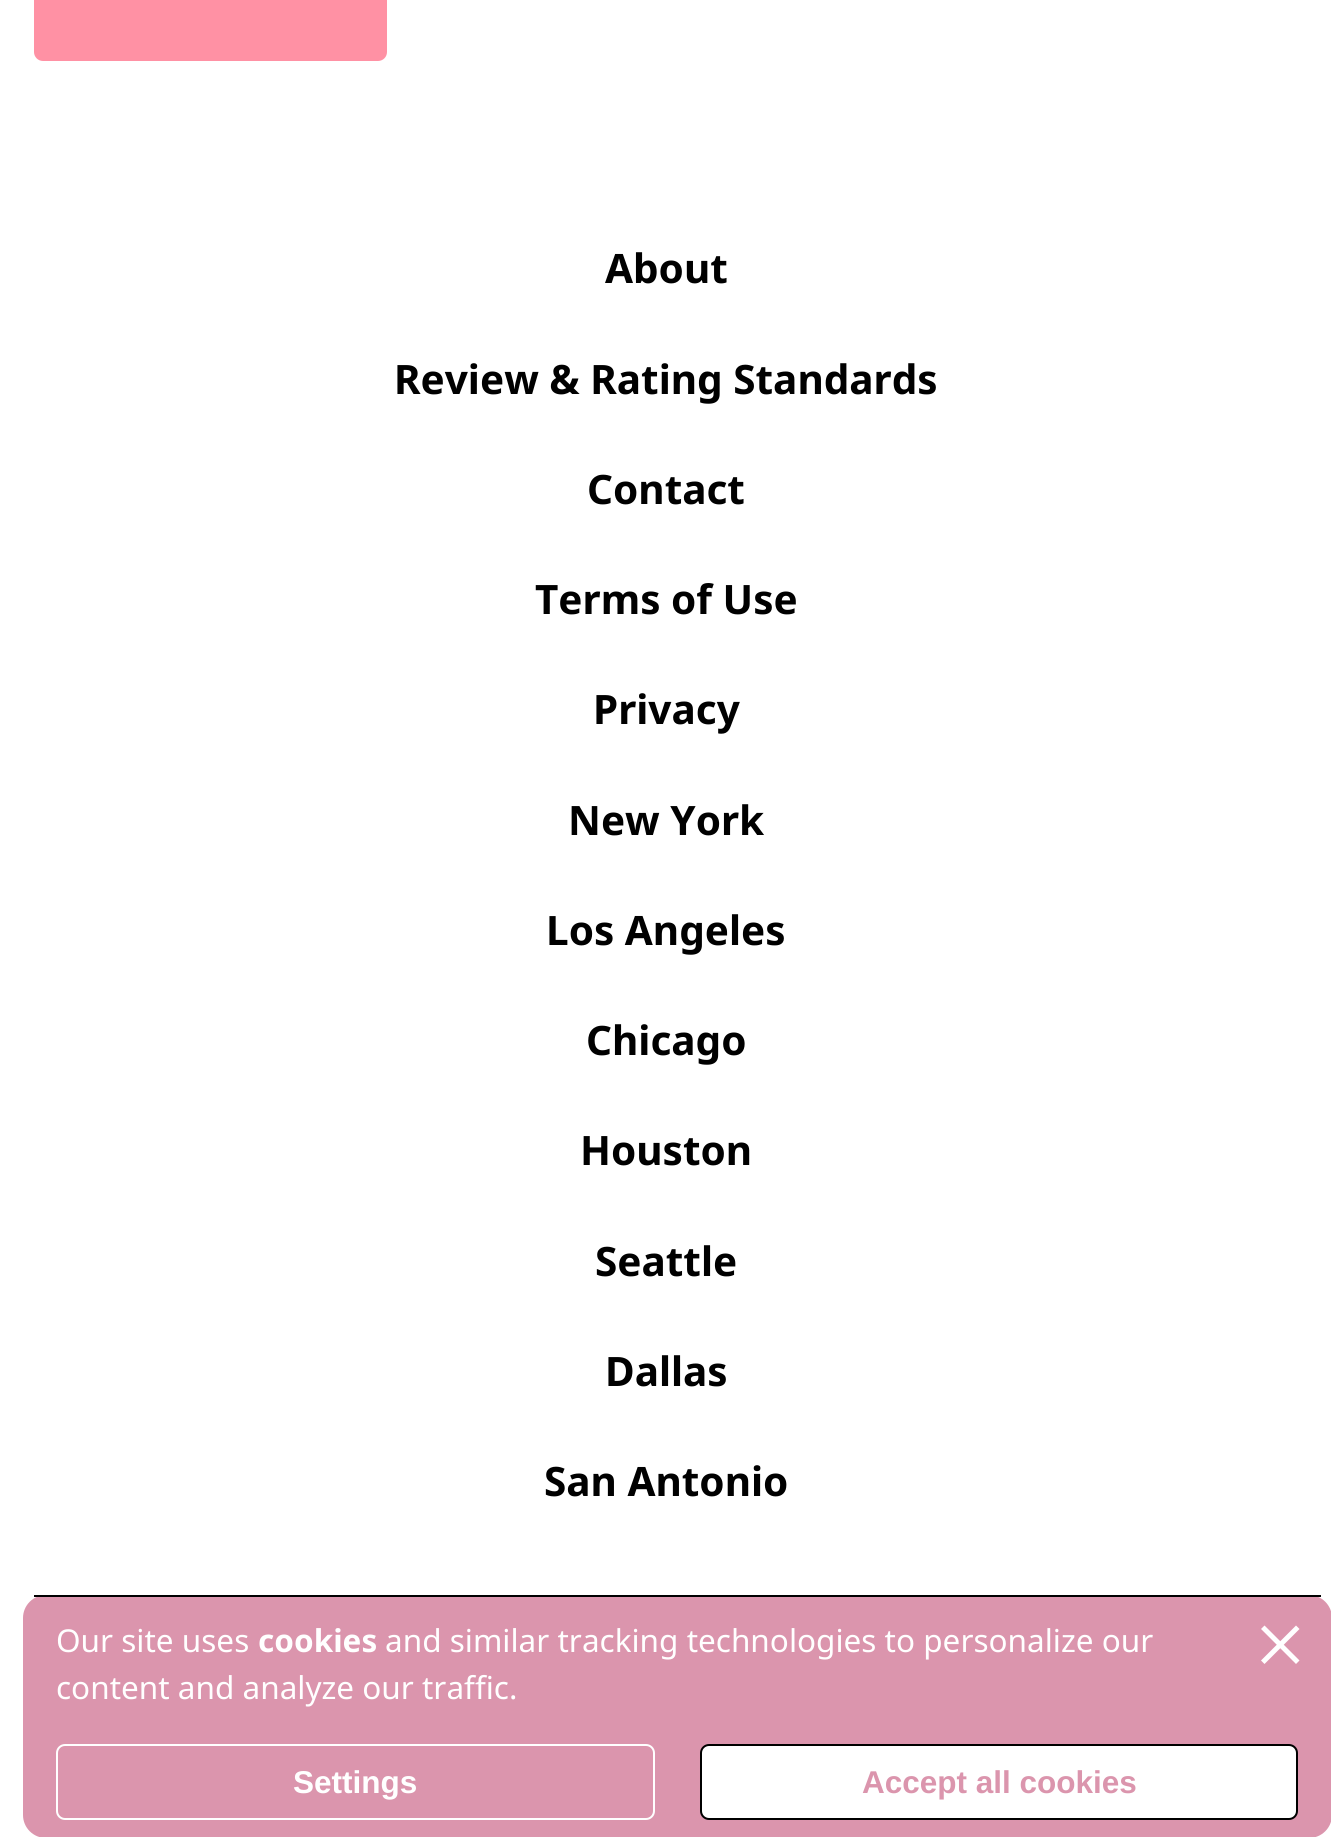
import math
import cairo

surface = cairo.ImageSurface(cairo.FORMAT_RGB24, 1331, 1837)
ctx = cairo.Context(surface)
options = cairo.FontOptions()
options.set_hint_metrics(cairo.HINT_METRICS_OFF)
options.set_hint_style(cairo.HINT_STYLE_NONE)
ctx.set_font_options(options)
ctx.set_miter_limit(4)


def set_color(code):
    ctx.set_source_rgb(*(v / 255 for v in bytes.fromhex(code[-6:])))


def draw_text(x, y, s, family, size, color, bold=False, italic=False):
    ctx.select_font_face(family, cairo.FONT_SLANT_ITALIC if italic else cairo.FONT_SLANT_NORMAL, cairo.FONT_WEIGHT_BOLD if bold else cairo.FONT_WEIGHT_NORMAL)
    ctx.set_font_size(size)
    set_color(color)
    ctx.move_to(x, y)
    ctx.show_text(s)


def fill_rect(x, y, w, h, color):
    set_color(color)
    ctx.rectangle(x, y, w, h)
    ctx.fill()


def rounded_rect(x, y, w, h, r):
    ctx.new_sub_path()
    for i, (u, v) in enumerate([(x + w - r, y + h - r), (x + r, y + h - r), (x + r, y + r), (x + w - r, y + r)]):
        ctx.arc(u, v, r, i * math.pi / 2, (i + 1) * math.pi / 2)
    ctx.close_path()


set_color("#ffffff")
ctx.paint()
set_color("#ff91a4")
rounded_rect(34, -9, 353, 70, 9)
ctx.fill()
draw_text(605, 283, "About", "Noto Sans", 40.5, "#000000", bold=True)
draw_text(394, 394, "Review & Rating Standards", "Noto Sans", 40.5, "#000000", bold=True)
draw_text(587, 504, "Contact", "Noto Sans", 40.5, "#000000", bold=True)
draw_text(535, 614, "Terms of Use", "Noto Sans", 40.5, "#000000", bold=True)
draw_text(593, 724, "Privacy", "Noto Sans", 40.5, "#000000", bold=True)
draw_text(568, 835, "New York", "Noto Sans", 40.5, "#000000", bold=True)
draw_text(546, 945, "Los Angeles", "Noto Sans", 40.5, "#000000", bold=True)
draw_text(586, 1055, "Chicago", "Noto Sans", 40.5, "#000000", bold=True)
draw_text(580, 1165, "Houston", "Noto Sans", 40.5, "#000000", bold=True)
draw_text(595, 1276, "Seattle", "Noto Sans", 40.5, "#000000", bold=True)
draw_text(605, 1386, "Dallas", "Noto Sans", 40.5, "#000000", bold=True)
draw_text(544, 1496, "San Antonio", "Noto Sans", 40.5, "#000000", bold=True)
set_color("#db95ad")
rounded_rect(23, 1595, 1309, 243, 23)
ctx.fill()
fill_rect(34, 1595, 1287, 2, "#000000")
draw_text(56, 1652, "Our site uses", "Noto Sans", 31.5, "#ffffff")
draw_text(258, 1652, "cookies", "Noto Sans", 31.5, "#ffffff", bold=True)
draw_text(385, 1652, "and similar tracking technologies to personalize our", "Noto Sans", 31.5, "#ffffff")
draw_text(56, 1699, "content and analyze our traffic.", "Noto Sans", 31.5, "#ffffff")
ctx.new_path()
ctx.move_to(1296, 1625.5)
ctx.line_to(1299.5, 1629)
ctx.line_to(1264.5, 1664)
ctx.line_to(1261, 1660.5)
ctx.close_path()
ctx.fill()
ctx.new_path()
ctx.move_to(1261, 1629)
ctx.line_to(1264.5, 1625.5)
ctx.line_to(1299.5, 1660.5)
ctx.line_to(1296, 1664)
ctx.close_path()
ctx.fill()
rounded_rect(57, 1745, 597, 74, 8)
ctx.stroke()
draw_text(293, 1793, "Settings", "Liberation Sans", 31.5, "#ffffff", bold=True)
rounded_rect(701, 1745, 596, 74, 8)
ctx.fill_preserve()
set_color("#000000")
ctx.stroke()
draw_text(862, 1793, "Accept all cookies", "Liberation Sans", 31.5, "#db95ad", bold=True)
surface.write_to_png("output.png")
